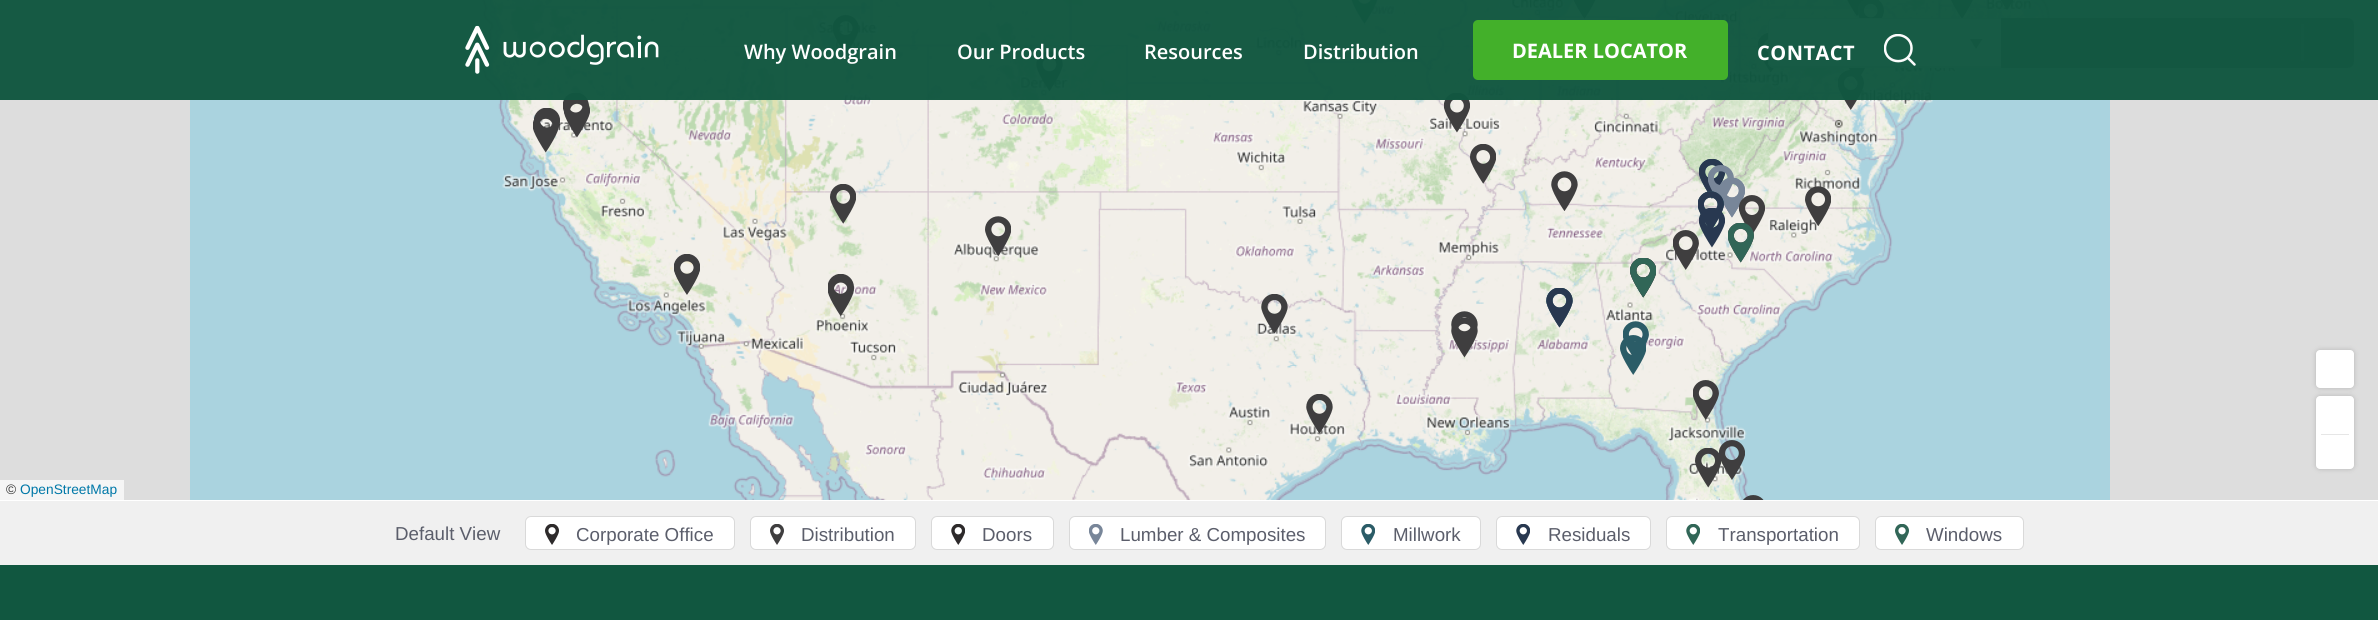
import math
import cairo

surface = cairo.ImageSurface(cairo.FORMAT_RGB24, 2378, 620)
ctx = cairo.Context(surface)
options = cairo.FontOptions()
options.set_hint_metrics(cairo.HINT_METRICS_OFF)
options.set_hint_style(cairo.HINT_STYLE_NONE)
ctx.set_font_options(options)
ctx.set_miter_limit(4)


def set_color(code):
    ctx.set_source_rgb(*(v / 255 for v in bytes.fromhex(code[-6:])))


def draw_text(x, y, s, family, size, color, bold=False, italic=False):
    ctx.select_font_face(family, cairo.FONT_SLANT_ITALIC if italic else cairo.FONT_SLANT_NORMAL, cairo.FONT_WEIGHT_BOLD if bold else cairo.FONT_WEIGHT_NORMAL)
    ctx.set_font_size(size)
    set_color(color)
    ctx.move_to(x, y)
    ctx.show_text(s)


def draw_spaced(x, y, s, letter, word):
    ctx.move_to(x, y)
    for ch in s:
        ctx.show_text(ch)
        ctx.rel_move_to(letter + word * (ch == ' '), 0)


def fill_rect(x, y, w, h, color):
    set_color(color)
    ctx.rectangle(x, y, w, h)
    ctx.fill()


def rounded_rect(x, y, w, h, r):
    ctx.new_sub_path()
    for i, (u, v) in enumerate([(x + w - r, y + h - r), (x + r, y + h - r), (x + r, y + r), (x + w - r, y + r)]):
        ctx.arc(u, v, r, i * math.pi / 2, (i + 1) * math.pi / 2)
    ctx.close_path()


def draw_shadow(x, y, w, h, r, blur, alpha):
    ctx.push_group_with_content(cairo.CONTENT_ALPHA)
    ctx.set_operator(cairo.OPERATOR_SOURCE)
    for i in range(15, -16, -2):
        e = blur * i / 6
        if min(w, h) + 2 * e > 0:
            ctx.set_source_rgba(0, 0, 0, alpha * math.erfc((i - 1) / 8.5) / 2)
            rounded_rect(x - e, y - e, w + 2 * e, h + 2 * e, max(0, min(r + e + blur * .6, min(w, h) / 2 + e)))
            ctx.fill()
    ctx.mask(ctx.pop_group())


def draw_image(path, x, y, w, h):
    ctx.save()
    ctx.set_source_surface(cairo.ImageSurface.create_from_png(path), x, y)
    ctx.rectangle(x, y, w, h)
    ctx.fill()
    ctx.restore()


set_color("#115740")
ctx.paint()
fill_rect(0, 0, 2378, 500, "#dddddd")
draw_image("assets/img6.png", 1470, 0, 320, 46)
draw_image("assets/img12.png", 1470, 46, 320, 320)
draw_image("assets/img26.png", 1758, 33, 16, 40)
set_color("#ffffff")
ctx.new_path()
ctx.move_to(1774, 18)
ctx.line_to(2001, 18)
ctx.line_to(2001, 68)
ctx.line_to(1774, 68)
ctx.curve_to(1770.5, 68, 1768, 65.5, 1768, 62)
ctx.line_to(1768, 24)
ctx.curve_to(1768, 20.5, 1770.5, 18, 1774, 18)
ctx.close_path()
ctx.fill()
set_color("#e1e3e6")
ctx.set_fill_rule(cairo.FILL_RULE_EVEN_ODD)
ctx.new_path()
ctx.move_to(1774, 18)
ctx.line_to(2001, 18)
ctx.line_to(2001, 68)
ctx.line_to(1774, 68)
ctx.curve_to(1770, 68, 1768, 65, 1768, 61)
ctx.line_to(1768, 24)
ctx.curve_to(1768, 20, 1770, 18, 1774, 18)
ctx.close_path()
ctx.move_to(1774, 19)
ctx.line_to(2001, 19)
ctx.line_to(2001, 66)
ctx.line_to(1774, 66)
ctx.curve_to(1771, 66, 1769, 64, 1769, 61)
ctx.line_to(1769, 24)
ctx.curve_to(1769, 21, 1771, 19, 1774, 19)
ctx.close_path()
ctx.fill()
set_color("#6e6e6f")
ctx.set_fill_rule(cairo.FILL_RULE_WINDING)
ctx.new_path()
ctx.move_to(1970, 39)
ctx.line_to(1982.5, 39)
ctx.line_to(1976, 49)
ctx.close_path()
ctx.fill()
set_color("#7b7b7b")
ctx.new_path()
ctx.move_to(2001, 18)
ctx.line_to(2348, 18)
ctx.curve_to(2351.5, 18, 2354, 20.5, 2354, 24)
ctx.line_to(2354, 62)
ctx.curve_to(2354, 65.5, 2351.5, 68, 2348, 68)
ctx.line_to(2001, 68)
ctx.close_path()
ctx.fill()
fill_rect(2301, 24, 3, 37, "#828282")
draw_image("assets/img2.png", 190, 0, 320, 46)
draw_image("assets/img3.png", 510, 0, 320, 46)
draw_image("assets/img4.png", 830, 0, 320, 46)
draw_image("assets/img5.png", 1150, 0, 320, 46)
draw_image("assets/img7.png", 1790, 0, 320, 18)
draw_image("assets/img8.png", 190, 46, 320, 320)
draw_image("assets/img9.png", 510, 46, 320, 320)
draw_image("assets/img10.png", 830, 46, 320, 320)
draw_image("assets/img11.png", 1150, 46, 320, 320)
draw_image("assets/img13.png", 1790, 68, 320, 298)
draw_image("assets/img18.png", 1351, 0, 27, 24)
draw_image("assets/img19.png", 1573, 0, 23, 19)
draw_image("assets/img20.png", 1847, 0, 16, 16)
draw_image("assets/img21.png", 1858, 0, 26, 18)
draw_image("assets/img22.png", 1951, 0, 22, 18)
draw_image("assets/img23.png", 2000, 0, 14, 10)
draw_image("assets/img24.png", 833, 15, 26, 40)
draw_image("assets/img25.png", 1036, 51, 27, 40)
draw_image("assets/img27.png", 1849, 68, 16, 13)
draw_image("assets/img28.png", 563, 93, 26, 25)
draw_image("assets/img29.png", 1444, 93, 26, 40)
draw_image("assets/img30.png", 1838, 70, 26, 40)
draw_image("assets/img32.png", 564, 98, 26, 40)
ctx.set_source_rgba(0.067, 0.341, 0.251, 0.97)
ctx.rectangle(0, 0, 2378, 100)
ctx.fill()
draw_image("assets/img1.png", 465, 25, 194, 49)
draw_text(744, 59, "Why Woodgrain", "Open Sans SemiBold", 20, "#ffffff")
draw_text(957, 59, "Our Products", "Open Sans SemiBold", 20, "#ffffff")
draw_text(1144, 59, "Resources", "Open Sans SemiBold", 20, "#ffffff")
draw_text(1303, 59, "Distribution", "Open Sans SemiBold", 20, "#ffffff")
set_color("#43b02a")
rounded_rect(1473, 20, 255, 60, 5)
ctx.fill()
draw_text(1512, 58, "DEALER LOCATOR", "Open Sans", 20, "#ffffff", bold=True)
draw_spaced(1757, 60, "CONTACT", 0.5, 0)
ctx.save()
ctx.rectangle(1884, 34, 32, 32)
ctx.clip()
ctx.new_path()
ctx.move_to(1911.5, 48)
ctx.curve_to(1911.5, 65.5, 1885, 65.5, 1885, 48)
ctx.curve_to(1885, 45.5, 1886, 43, 1887, 41)
ctx.curve_to(1894.5, 30, 1911.5, 35.5, 1911.5, 48)
ctx.close_path()
set_color("#fcfcfc")
ctx.set_line_width(2.5)
ctx.set_line_cap(cairo.LINE_CAP_ROUND)
ctx.set_line_join(cairo.LINE_JOIN_ROUND)
ctx.stroke()
ctx.restore()
ctx.new_path()
ctx.move_to(1914.5, 64.5)
ctx.line_to(1908, 58)
set_color("#fcfcfc")
ctx.set_line_width(2.5)
ctx.set_line_cap(cairo.LINE_CAP_ROUND)
ctx.set_line_join(cairo.LINE_JOIN_ROUND)
ctx.stroke()
set_color("#000000")
draw_shadow(2316, 396, 38, 73, 4, 2.5, 0.18)
set_color("#ffffff")
rounded_rect(2316, 396, 38, 73, 4)
ctx.fill()
set_color("#000000")
draw_shadow(2316, 350, 38, 38, 4, 2.5, 0.18)
set_color("#ffffff")
rounded_rect(2316, 350, 38, 38, 4)
ctx.fill()
fill_rect(2321, 434, 28, 1, "#e6e6e6")
fill_rect(0, 480, 124, 20, "#f5f5f5")
draw_text(6, 494, "©", "Liberation Sans", 13.75, "#333333")
draw_text(20, 494, "OpenStreetMap", "Liberation Sans", 13.75, "#0078a8")
fill_rect(190, 366, 320, 134, "#aad3df")
draw_image("assets/img14.png", 510, 366, 320, 134)
draw_image("assets/img15.png", 830, 366, 320, 134)
draw_image("assets/img16.png", 1150, 366, 320, 134)
draw_image("assets/img17.png", 1470, 366, 320, 134)
fill_rect(1790, 366, 320, 134, "#aad3df")
draw_image("assets/img31.png", 534, 108, 26, 25)
draw_image("assets/img33.png", 533, 113, 26, 40)
draw_image("assets/img34.png", 1470, 144, 26, 40)
draw_image("assets/img35.png", 1699, 159, 26, 40)
draw_image("assets/img36.png", 1699, 159, 26, 40)
draw_image("assets/img37.png", 1551, 171, 27, 40)
draw_image("assets/img38.png", 1708, 165, 26, 32)
draw_image("assets/img39.png", 1720, 178, 25, 40)
draw_image("assets/img40.png", 830, 184, 26, 40)
draw_image("assets/img42.png", 1720, 178, 25, 40)
draw_image("assets/img41.png", 1698, 191, 26, 37)
draw_image("assets/img43.png", 1805, 186, 26, 40)
draw_image("assets/img44.png", 1698, 191, 26, 37)
draw_image("assets/img45.png", 1739, 195, 26, 39)
draw_image("assets/img46.png", 985, 216, 26, 40)
draw_image("assets/img47.png", 1699, 208, 26, 40)
draw_image("assets/img48.png", 1728, 223, 26, 40)
draw_image("assets/img49.png", 1673, 230, 26, 40)
draw_image("assets/img50.png", 1728, 223, 26, 40)
draw_image("assets/img51.png", 674, 254, 26, 40)
draw_image("assets/img52.png", 1630, 258, 26, 40)
draw_image("assets/img53.png", 1630, 258, 26, 40)
draw_image("assets/img54.png", 674, 260, 26, 35)
draw_image("assets/img55.png", 828, 274, 26, 24)
draw_image("assets/img56.png", 1630, 258, 26, 40)
draw_image("assets/img57.png", 828, 280, 26, 36)
draw_image("assets/img58.png", 1546, 288, 27, 40)
draw_image("assets/img59.png", 1261, 294, 27, 40)
draw_image("assets/img60.png", 1451, 311, 27, 27)
draw_image("assets/img61.png", 1546, 288, 27, 40)
draw_image("assets/img62.png", 1451, 318, 27, 40)
draw_image("assets/img63.png", 1623, 321, 26, 34)
draw_image("assets/img64.png", 1620, 335, 26, 40)
draw_image("assets/img65.png", 1306, 394, 27, 40)
draw_image("assets/img66.png", 1693, 380, 26, 40)
draw_image("assets/img68.png", 1719, 440, 26, 40)
draw_image("assets/img67.png", 1695, 448, 26, 40)
draw_image("assets/img69.png", 1743, 495, 21, 5)
fill_rect(0, 501, 2378, 64, "#f0f0f0")
fill_rect(0, 500, 2378, 1, "#ffffff")
draw_text(395, 540, "Default View", "Liberation Sans", 18.75, "#5b5e6b")
set_color("#ffffff")
rounded_rect(525.5, 516.5, 209, 33, 5.5)
ctx.fill_preserve()
set_color("#d9d9d9")
ctx.set_line_width(1)
ctx.set_line_cap(cairo.LINE_CAP_BUTT)
ctx.set_line_join(cairo.LINE_JOIN_MITER)
ctx.stroke()
draw_image("assets/img70.png", 545, 524, 14, 21)
draw_text(576, 541, "Corporate Office", "Liberation Sans", 18.75, "#5b5e6b")
set_color("#ffffff")
rounded_rect(750.5, 516.5, 165, 33, 5.5)
ctx.fill_preserve()
set_color("#d9d9d9")
ctx.stroke()
draw_image("assets/img71.png", 770, 524, 14, 21)
draw_text(801, 541, "Distribution", "Liberation Sans", 18.75, "#5b5e6b")
set_color("#ffffff")
rounded_rect(931.5, 516.5, 122, 33, 5.5)
ctx.fill_preserve()
set_color("#d9d9d9")
ctx.stroke()
draw_image("assets/img72.png", 951, 524, 14, 21)
draw_text(982, 541, "Doors", "Liberation Sans", 18.75, "#5b5e6b")
set_color("#ffffff")
rounded_rect(1069.5, 516.5, 256, 33, 5.5)
ctx.fill_preserve()
set_color("#d9d9d9")
ctx.stroke()
draw_image("assets/img73.png", 1089, 524, 14, 21)
draw_text(1120, 541, "Lumber & Composites", "Liberation Sans", 18.75, "#5b5e6b")
set_color("#ffffff")
rounded_rect(1341.5, 516.5, 139, 33, 5.5)
ctx.fill_preserve()
set_color("#d9d9d9")
ctx.stroke()
draw_image("assets/img74.png", 1361, 524, 14, 21)
draw_text(1393, 541, "Millwork", "Liberation Sans", 18.75, "#5b5e6b")
set_color("#ffffff")
rounded_rect(1496.5, 516.5, 154, 33, 5.5)
ctx.fill_preserve()
set_color("#d9d9d9")
ctx.stroke()
draw_image("assets/img75.png", 1516, 524, 14, 21)
draw_text(1548, 541, "Residuals", "Liberation Sans", 18.75, "#5b5e6b")
set_color("#ffffff")
rounded_rect(1666.5, 516.5, 193, 33, 5.5)
ctx.fill_preserve()
set_color("#d9d9d9")
ctx.stroke()
draw_image("assets/img76.png", 1686, 524, 14, 21)
draw_text(1718, 541, "Transportation", "Liberation Sans", 18.75, "#5b5e6b")
set_color("#ffffff")
rounded_rect(1875.5, 516.5, 148, 33, 5.5)
ctx.fill_preserve()
set_color("#d9d9d9")
ctx.stroke()
draw_image("assets/img77.png", 1895, 524, 14, 21)
draw_text(1926, 541, "Windows", "Liberation Sans", 18.75, "#5b5e6b")
surface.write_to_png("output.png")
